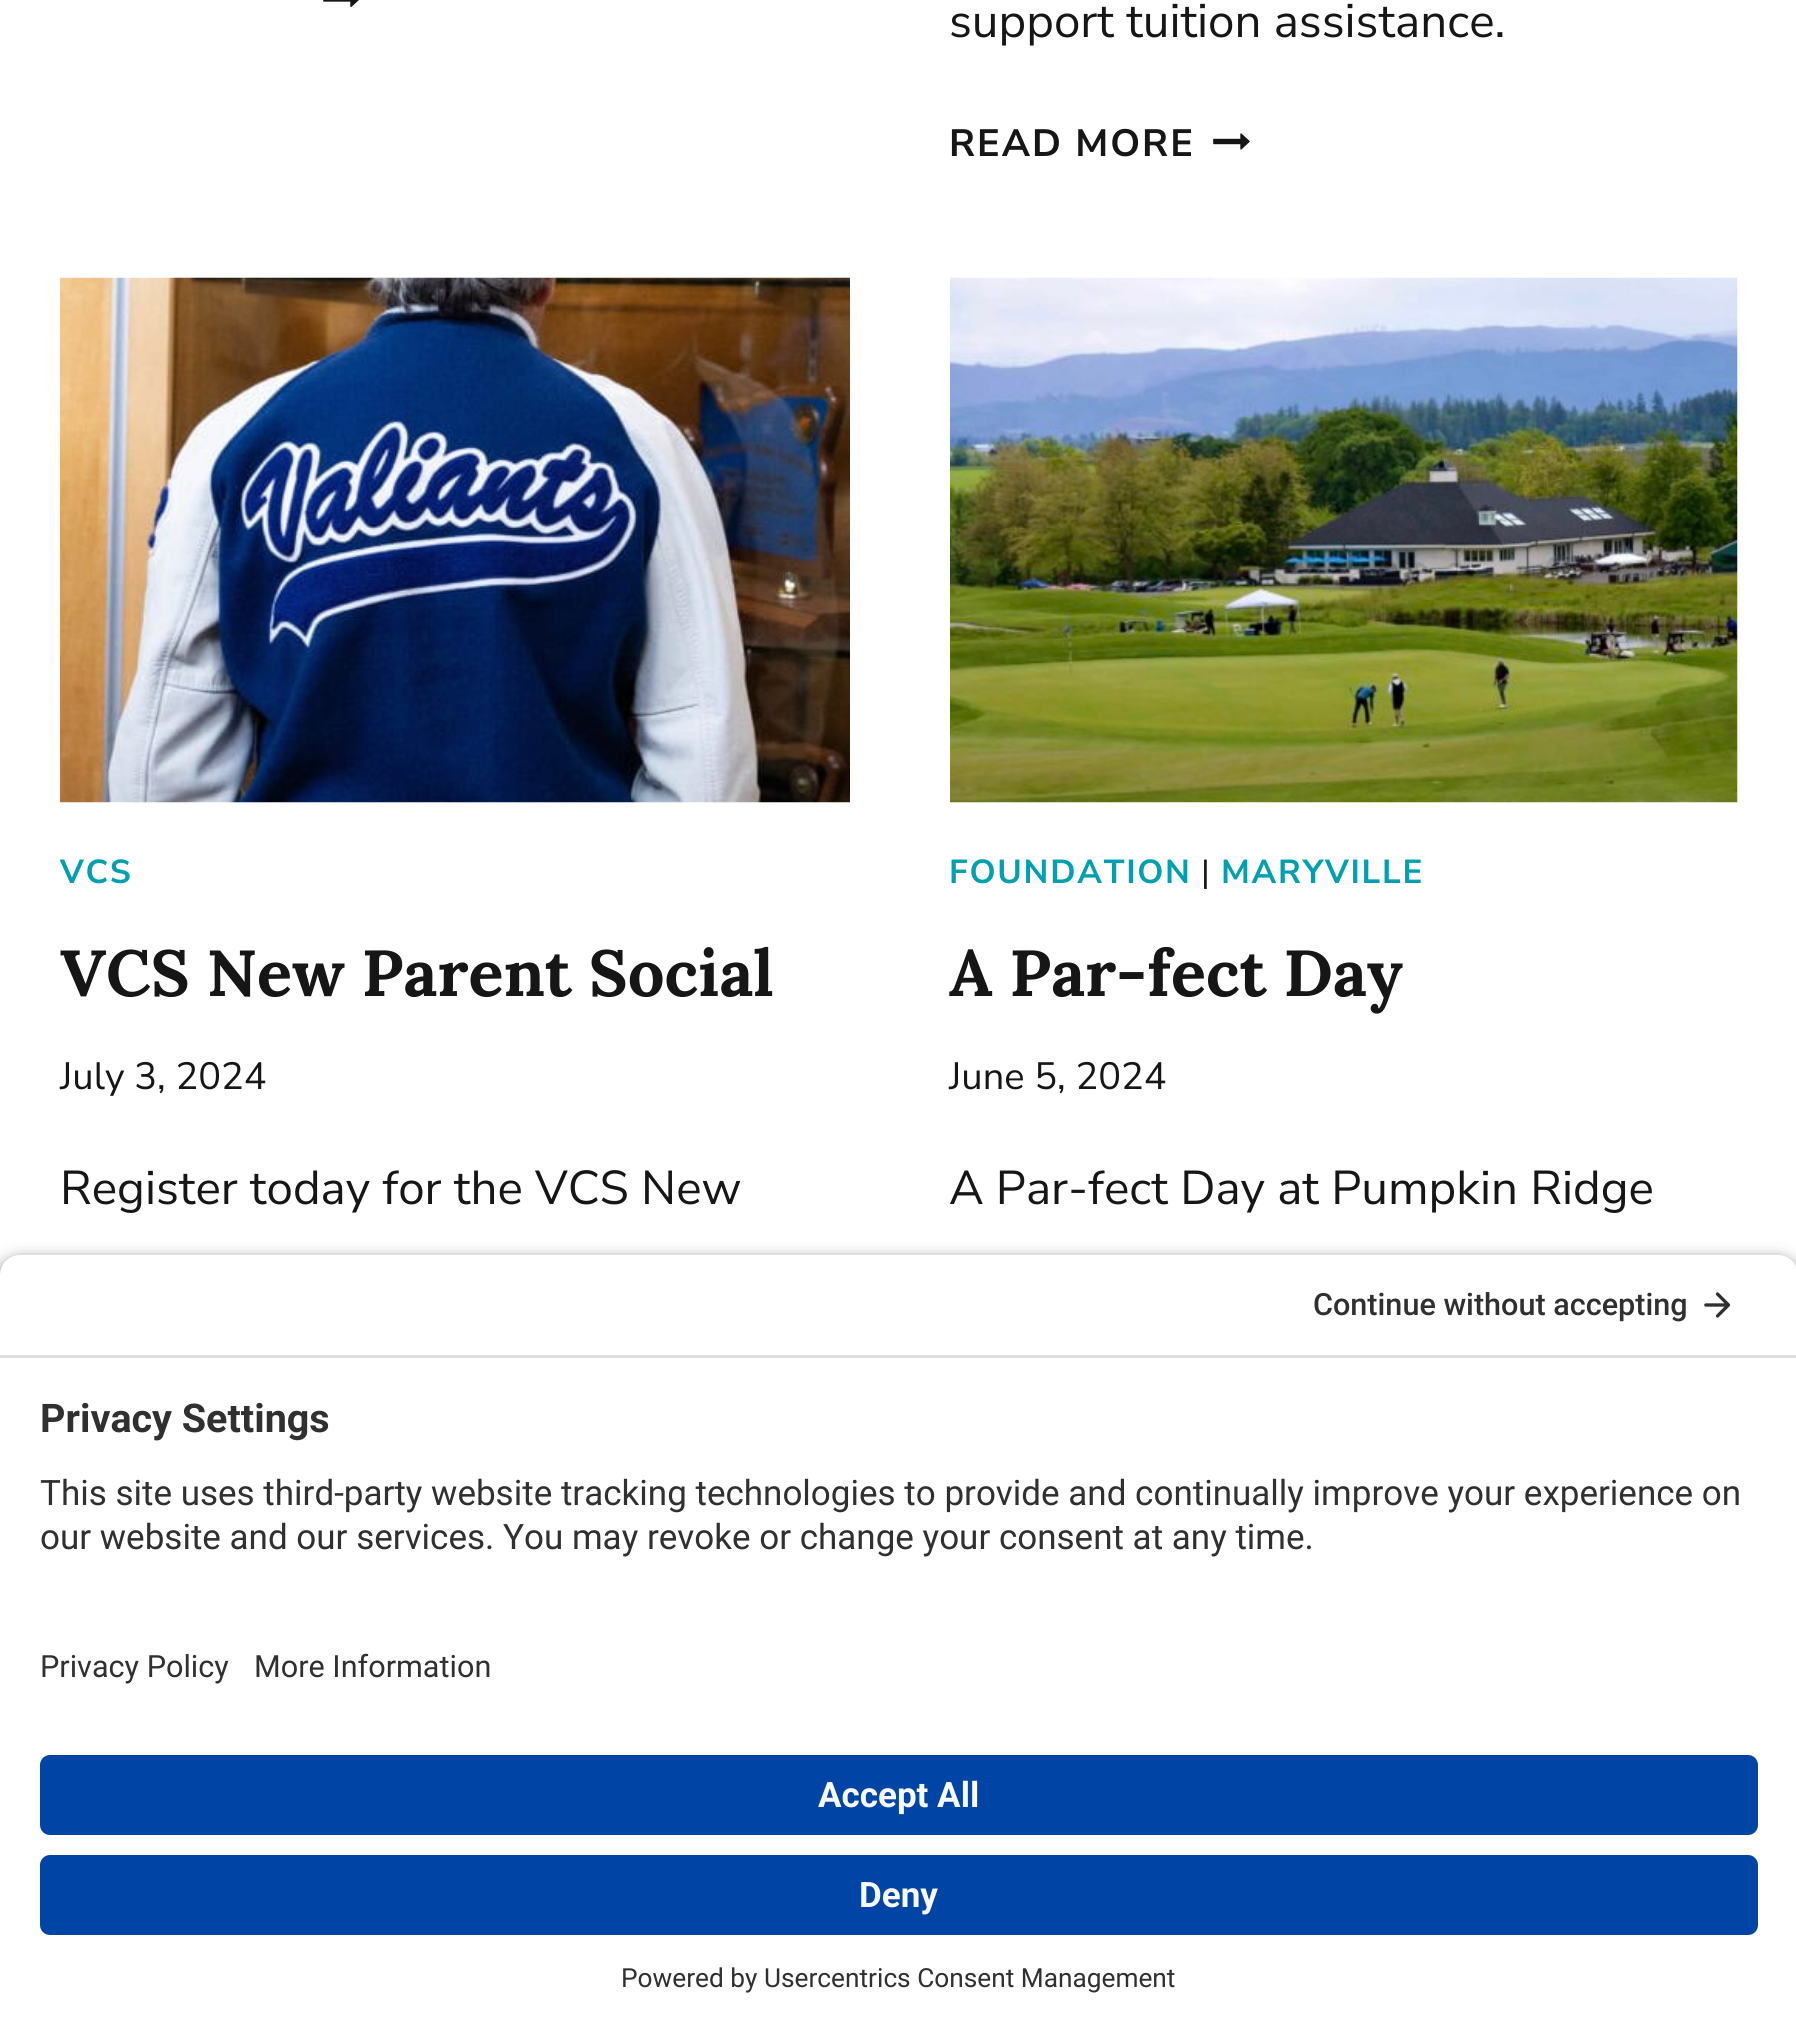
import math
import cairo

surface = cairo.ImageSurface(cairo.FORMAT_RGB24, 1796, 2034)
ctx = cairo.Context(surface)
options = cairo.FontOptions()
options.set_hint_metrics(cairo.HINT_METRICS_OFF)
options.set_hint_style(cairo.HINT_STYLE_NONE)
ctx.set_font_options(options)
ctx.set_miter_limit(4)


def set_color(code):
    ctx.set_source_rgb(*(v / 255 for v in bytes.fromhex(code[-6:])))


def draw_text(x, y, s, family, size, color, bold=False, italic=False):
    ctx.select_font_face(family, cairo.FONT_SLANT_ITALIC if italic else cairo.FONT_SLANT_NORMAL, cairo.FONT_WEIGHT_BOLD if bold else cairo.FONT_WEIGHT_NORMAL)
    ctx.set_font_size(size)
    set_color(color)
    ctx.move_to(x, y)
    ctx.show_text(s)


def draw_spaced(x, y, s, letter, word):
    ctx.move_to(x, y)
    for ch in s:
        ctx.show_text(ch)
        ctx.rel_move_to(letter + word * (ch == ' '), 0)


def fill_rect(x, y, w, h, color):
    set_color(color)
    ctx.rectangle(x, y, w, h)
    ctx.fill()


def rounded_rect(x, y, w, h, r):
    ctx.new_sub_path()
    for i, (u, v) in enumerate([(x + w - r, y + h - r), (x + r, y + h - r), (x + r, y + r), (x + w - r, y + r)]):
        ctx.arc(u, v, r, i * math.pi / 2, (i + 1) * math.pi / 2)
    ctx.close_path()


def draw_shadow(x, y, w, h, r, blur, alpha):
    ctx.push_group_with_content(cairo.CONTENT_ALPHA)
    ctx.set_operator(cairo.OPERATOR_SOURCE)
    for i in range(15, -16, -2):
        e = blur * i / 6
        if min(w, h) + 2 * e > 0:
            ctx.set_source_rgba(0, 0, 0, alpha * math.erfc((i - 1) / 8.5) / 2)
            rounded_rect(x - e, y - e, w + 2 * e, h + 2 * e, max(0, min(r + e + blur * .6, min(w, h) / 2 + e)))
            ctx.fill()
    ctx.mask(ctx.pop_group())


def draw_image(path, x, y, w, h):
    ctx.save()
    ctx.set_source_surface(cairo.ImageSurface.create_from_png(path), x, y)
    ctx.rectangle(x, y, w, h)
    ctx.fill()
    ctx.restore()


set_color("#ffffff")
ctx.paint()
draw_image("assets/img1.png", 323, 0, 36, 8)
draw_text(949, 37, "support tuition assistance.", "Nunito Sans", 47.5, "#161616")
ctx.select_font_face("Nunito Sans", cairo.FONT_SLANT_NORMAL, cairo.FONT_WEIGHT_BOLD)
ctx.set_font_size(38)
draw_spaced(949, 156, "READ MORE", 2, 0)
draw_image("assets/img2.png", 1213, 133, 37, 17)
draw_image("assets/img3.png", 60, 277, 790, 526)
ctx.set_font_size(33.25)
set_color("#00a0b0")
draw_spaced(60, 883, "VCS", 1.75, 0)
draw_text(60, 996, "VCS New Parent Social", "Lora", 65, "#161616", bold=True)
draw_text(60, 1089, "July 3, 2024", "Nunito Sans", 38, "#161616")
draw_text(60, 1204, "Register today for the VCS New", "Nunito Sans", 47.5, "#161616")
draw_image("assets/img4.png", 950, 277, 788, 526)
ctx.select_font_face("Nunito Sans", cairo.FONT_SLANT_NORMAL, cairo.FONT_WEIGHT_BOLD)
ctx.set_font_size(33.25)
set_color("#00a0b0")
draw_spaced(949, 883, "FOUNDATION", 1.75, 0)
ctx.select_font_face("Nunito Sans")
set_color("#161616")
draw_spaced(1201, 883, "|", 1.75, 0)
ctx.select_font_face("Nunito Sans", cairo.FONT_SLANT_NORMAL, cairo.FONT_WEIGHT_BOLD)
set_color("#00a0b0")
draw_spaced(1221, 883, "MARYVILLE", 1.75, 0)
draw_text(949, 996, "A Par-fect Day", "Lora", 65, "#161616", bold=True)
draw_text(949, 1089, "June 5, 2024", "Nunito Sans", 38, "#161616")
draw_text(949, 1204, "A Par-fect Day at Pumpkin Ridge", "Nunito Sans", 47.5, "#161616")
set_color("#000000")
draw_shadow(0, 1263, 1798, 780, 20, 9, 0.8)
set_color("#ffffff")
ctx.new_path()
ctx.move_to(20, 1255)
ctx.line_to(1778, 1255)
ctx.curve_to(1789, 1255, 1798, 1264, 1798, 1275)
ctx.line_to(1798, 1358)
ctx.line_to(0, 1358)
ctx.line_to(0, 1275)
ctx.curve_to(0, 1264, 9, 1255, 20, 1255)
ctx.close_path()
ctx.fill()
fill_rect(0, 1355, 1796, 3, "#dedede")
draw_text(1313, 1315, "Continue without accepting", "Roboto Medium", 30.6, "#303030")
draw_image("assets/img5.png", 1704, 1292, 27, 26)
fill_rect(0, 1358, 1796, 676, "#ffffff")
draw_text(40, 1432, "Privacy Settings", "Roboto", 39.5, "#303030", bold=True)
draw_text(40, 1505, "This site uses third-party website tracking technologies to provide and continually improve your experience on", "Roboto", 35, "#303030")
draw_text(40, 1549, "our website and our services. You may revoke or change your consent at any time.", "Roboto", 35, "#303030")
draw_text(40, 1677, "Privacy Policy", "Roboto", 30.6, "#303030")
draw_text(254, 1677, "More Information", "Roboto", 30.6, "#303030")
set_color("#0045a5")
rounded_rect(40, 1755, 1718, 80, 10)
ctx.fill()
draw_text(818, 1807, "Accept All", "Roboto", 35, "#fafafa", bold=True)
set_color("#0045a5")
rounded_rect(40, 1855, 1718, 80, 10)
ctx.fill()
draw_text(859, 1907, "Deny", "Roboto", 35, "#fafafa", bold=True)
draw_text(621, 1987, "Powered by Usercentrics Consent Management", "Roboto", 26.25, "#303030")
surface.write_to_png("output.png")
